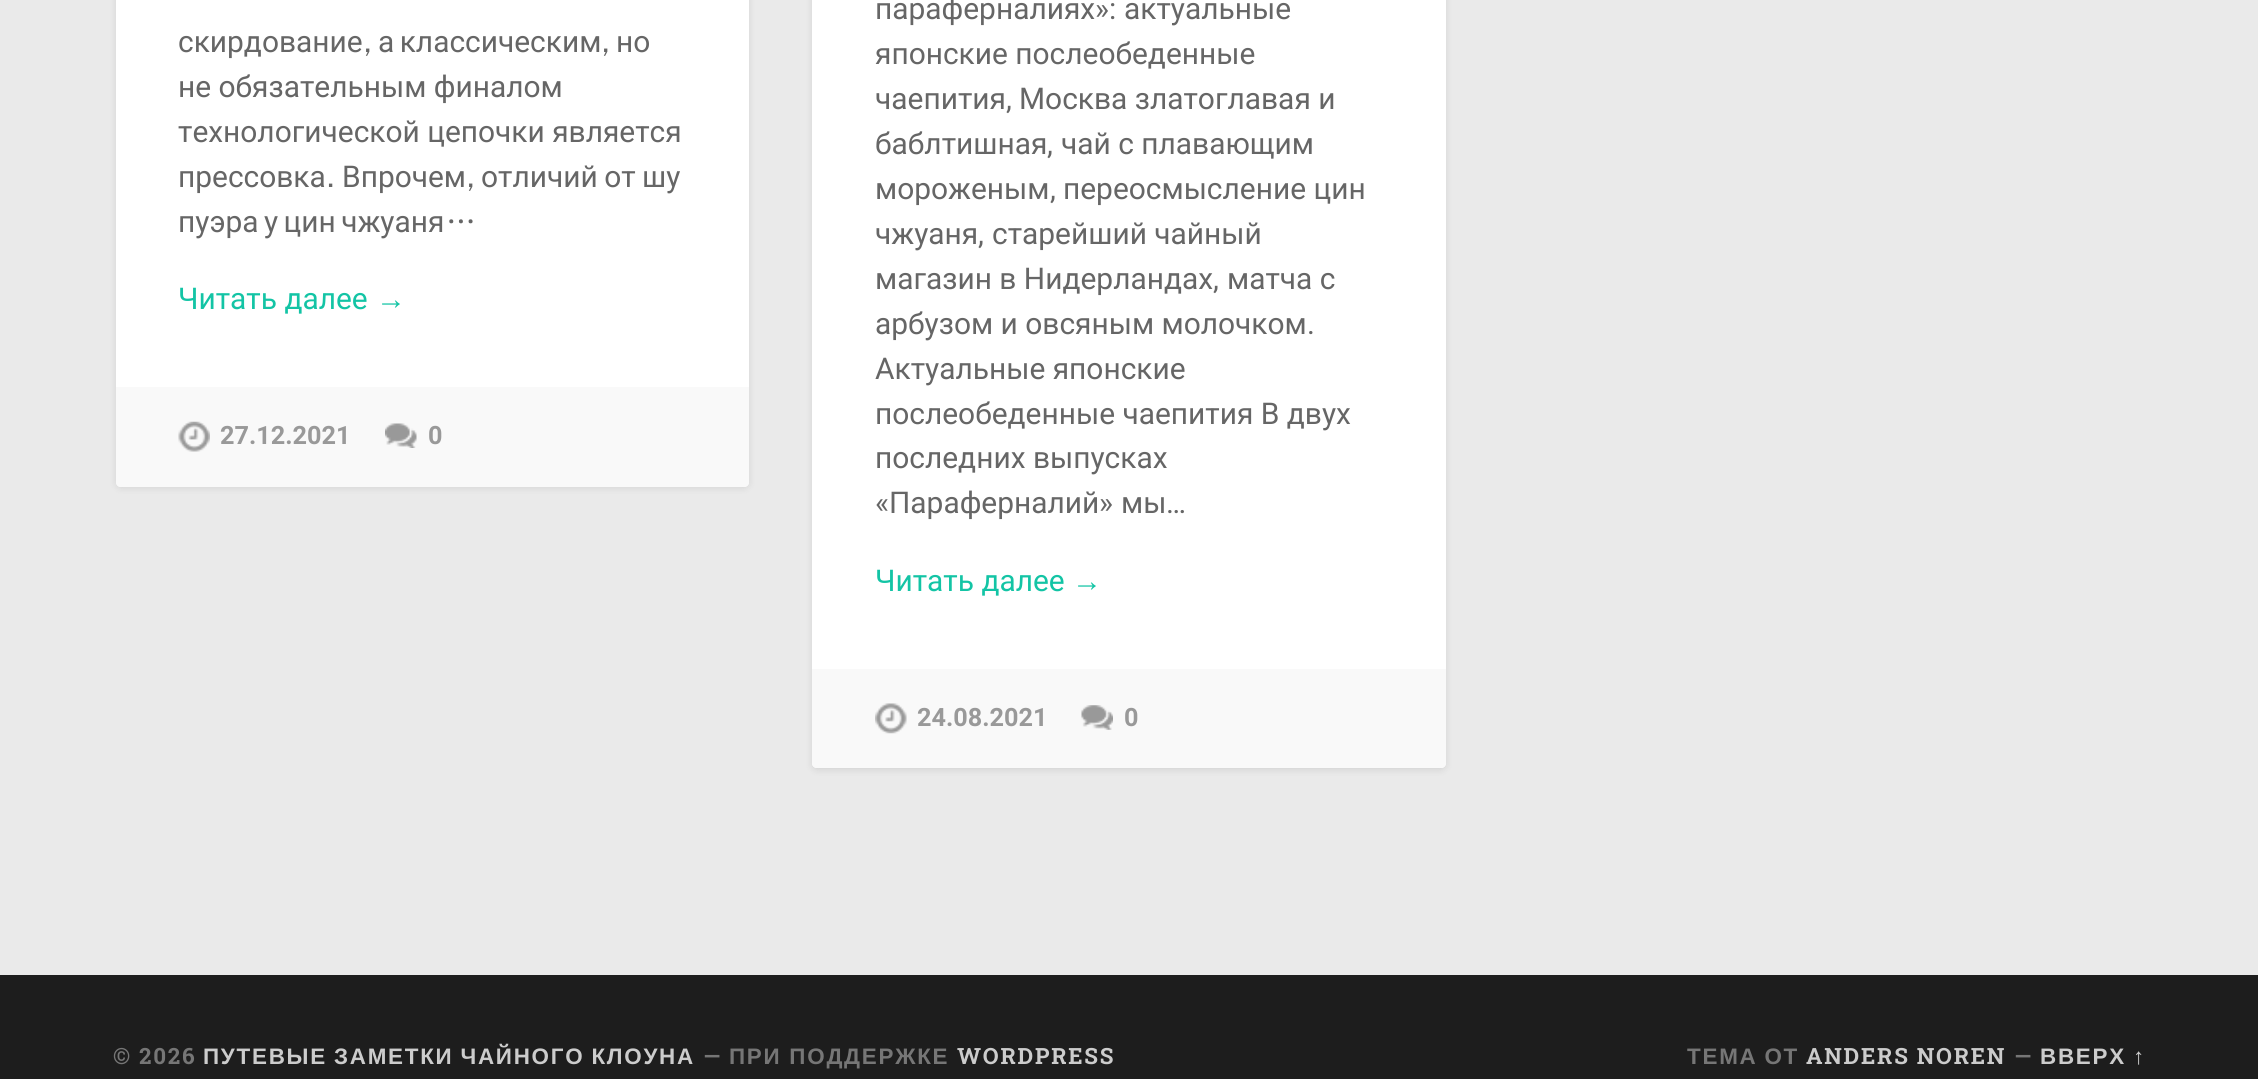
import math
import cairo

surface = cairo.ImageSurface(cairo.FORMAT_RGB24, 2258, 1079)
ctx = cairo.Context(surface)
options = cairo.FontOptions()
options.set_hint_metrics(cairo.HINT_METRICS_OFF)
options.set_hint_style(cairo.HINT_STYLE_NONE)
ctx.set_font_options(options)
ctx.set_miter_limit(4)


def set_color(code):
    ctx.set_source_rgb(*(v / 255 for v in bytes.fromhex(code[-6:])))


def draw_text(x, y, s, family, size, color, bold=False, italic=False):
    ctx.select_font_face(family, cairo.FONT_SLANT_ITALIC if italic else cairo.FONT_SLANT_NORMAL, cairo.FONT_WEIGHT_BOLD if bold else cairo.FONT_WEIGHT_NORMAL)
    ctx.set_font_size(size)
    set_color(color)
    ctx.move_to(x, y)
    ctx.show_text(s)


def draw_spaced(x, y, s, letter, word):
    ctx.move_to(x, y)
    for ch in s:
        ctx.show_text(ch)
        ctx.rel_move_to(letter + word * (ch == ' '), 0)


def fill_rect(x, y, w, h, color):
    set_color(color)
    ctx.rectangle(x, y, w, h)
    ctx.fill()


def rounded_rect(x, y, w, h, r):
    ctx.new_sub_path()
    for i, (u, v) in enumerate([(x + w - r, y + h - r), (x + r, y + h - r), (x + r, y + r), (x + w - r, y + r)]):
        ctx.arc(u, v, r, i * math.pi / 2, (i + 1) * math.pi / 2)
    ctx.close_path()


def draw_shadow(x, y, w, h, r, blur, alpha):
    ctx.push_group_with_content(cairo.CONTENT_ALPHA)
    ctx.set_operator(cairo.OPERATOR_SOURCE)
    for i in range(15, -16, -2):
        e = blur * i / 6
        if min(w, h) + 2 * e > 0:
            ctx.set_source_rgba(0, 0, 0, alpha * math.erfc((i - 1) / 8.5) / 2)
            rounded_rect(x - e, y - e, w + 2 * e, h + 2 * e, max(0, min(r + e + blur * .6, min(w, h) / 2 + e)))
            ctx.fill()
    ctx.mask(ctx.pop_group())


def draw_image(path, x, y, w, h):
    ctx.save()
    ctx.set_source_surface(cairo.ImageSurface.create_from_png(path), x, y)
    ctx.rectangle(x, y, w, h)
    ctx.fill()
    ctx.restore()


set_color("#eaeaea")
ctx.paint()
set_color("#000000")
draw_shadow(116, -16, 633, 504, 5, 3.5, 0.1)
set_color("#ffffff")
rounded_rect(116, -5, 633, 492, 5)
ctx.fill()
draw_text(178, 52, "скирдование", "Roboto", 29.9, "#666666")
draw_text(363, 52, ",", "WenQuanYi Zen Hei Medium", 29.9, "#666666")
ctx.select_font_face("Roboto")
draw_spaced(378, 52, "а классическим", 0, -2)
draw_text(601, 52, ",", "WenQuanYi Zen Hei Medium", 29.9, "#666666")
draw_text(616, 52, "но", "Roboto", 29.9, "#666666")
draw_text(178, 97, "не обязательным финалом", "Roboto", 29.9, "#666666")
draw_text(178, 142, "технологической цепочки является", "Roboto", 29.9, "#666666")
draw_text(178, 187, "прессовка", "Roboto", 29.9, "#666666")
draw_text(326, 187, ".", "WenQuanYi Zen Hei Medium", 29.9, "#666666")
draw_text(342, 187, "Впрочем", "Roboto", 29.9, "#666666")
draw_text(466, 187, ",", "WenQuanYi Zen Hei Medium", 29.9, "#666666")
ctx.select_font_face("Roboto")
draw_spaced(481, 187, "отличий от шу", 0, -1)
draw_spaced(178, 232, "пуэра у цин чжуаня", 0, -2)
draw_text(446, 232, "…", "WenQuanYi Zen Hei Medium", 29.9, "#666666")
draw_text(178, 309, "Читать далее", "Roboto", 29.9, "#13c4a5")
draw_text(376, 309, "→", "Liberation Serif", 29.9, "#13c4a5")
set_color("#f9f9f9")
ctx.new_path()
ctx.move_to(116, 387)
ctx.line_to(749, 387)
ctx.line_to(749, 482)
ctx.curve_to(749, 485, 747, 487, 744, 487)
ctx.line_to(121, 487)
ctx.curve_to(118, 487, 116, 485, 116, 482)
ctx.close_path()
ctx.fill()
draw_image("assets/img1.png", 178, 421, 32, 31)
draw_text(220, 444, "27.12.2021", "Roboto", 25.25, "#999999", bold=True)
draw_image("assets/img2.png", 385, 423, 32, 25)
draw_text(428, 444, "0", "Roboto", 25.25, "#999999", bold=True)
set_color("#000000")
draw_shadow(812, -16, 634, 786, 5, 3.5, 0.1)
set_color("#ffffff")
rounded_rect(812, -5, 634, 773, 5)
ctx.fill()
draw_text(875, 19, "параферналиях", "Roboto", 29.9, "#666666")
draw_text(1095, 19, "»:", "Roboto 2", 29.9, "#666666")
draw_text(1124, 19, "актуальные", "Roboto", 29.9, "#666666")
draw_text(875, 64, "японские послеобеденные", "Roboto", 29.9, "#666666")
draw_text(875, 109, "чаепития", "Roboto", 29.9, "#666666")
draw_text(1006, 109, ",", "Roboto 2", 29.9, "#666666")
draw_text(1019, 109, "Москва златоглавая и", "Roboto", 29.9, "#666666")
draw_text(875, 154, "баблтишная", "Roboto", 29.9, "#666666")
draw_text(1047, 154, ",", "Roboto 2", 29.9, "#666666")
draw_text(1061, 154, "чай с плавающим", "Roboto", 29.9, "#666666")
draw_text(875, 199, "мороженым", "Roboto", 29.9, "#666666")
draw_text(1050, 199, ",", "Roboto 2", 29.9, "#666666")
draw_text(1063, 199, "переосмысление цин", "Roboto", 29.9, "#666666")
draw_text(875, 244, "чжуаня", "Roboto", 29.9, "#666666")
draw_text(978, 244, ",", "Roboto 2", 29.9, "#666666")
draw_text(992, 244, "старейший чайный", "Roboto", 29.9, "#666666")
draw_text(875, 289, "магазин в Нидерландах", "Roboto", 29.9, "#666666")
draw_text(1213, 289, ",", "Roboto 2", 29.9, "#666666")
draw_text(1227, 289, "матча с", "Roboto", 29.9, "#666666")
draw_text(875, 334, "арбузом и овсяным молочком", "Roboto", 29.9, "#666666")
draw_text(1307, 334, ".", "Roboto 2", 29.9, "#666666")
draw_text(875, 379, "Актуальные японские", "Roboto", 29.9, "#666666")
draw_text(875, 424, "послеобеденные чаепития В двух", "Roboto", 29.9, "#666666")
draw_text(875, 468, "последних выпусках", "Roboto", 29.9, "#666666")
draw_text(875, 513, "«", "Roboto 2", 29.9, "#666666")
draw_text(889, 513, "Параферналий", "Roboto", 29.9, "#666666")
draw_text(1099, 513, "»", "Roboto 2", 29.9, "#666666")
draw_text(1121, 513, "мы", "Roboto", 29.9, "#666666")
draw_text(1166, 513, "…", "Roboto 2", 29.9, "#666666")
draw_text(875, 591, "Читать далее", "Roboto", 29.9, "#13c4a5")
draw_text(1072, 591, "→", "Liberation Serif", 29.9, "#13c4a5")
set_color("#f9f9f9")
ctx.new_path()
ctx.move_to(812, 669)
ctx.line_to(1446, 669)
ctx.line_to(1446, 763)
ctx.curve_to(1446, 766, 1444, 768, 1441, 768)
ctx.line_to(817, 768)
ctx.curve_to(814, 768, 812, 766, 812, 763)
ctx.close_path()
ctx.fill()
draw_image("assets/img3.png", 875, 703, 32, 31)
draw_text(917, 726, "24.08.2021", "Roboto", 25.25, "#999999", bold=True)
draw_image("assets/img4.png", 1081, 705, 32, 25)
draw_text(1124, 726, "0", "Roboto", 25.25, "#999999", bold=True)
fill_rect(0, 975, 2258, 104, "#1d1d1d")
ctx.select_font_face("Roboto Slab", cairo.FONT_SLANT_NORMAL, cairo.FONT_WEIGHT_BOLD)
ctx.set_font_size(22.4)
set_color("#767676")
draw_spaced(113, 1064, "© 2026", 1.75, 0)
ctx.select_font_face("Liberation Sans", cairo.FONT_SLANT_NORMAL, cairo.FONT_WEIGHT_BOLD)
set_color("#cccccc")
draw_spaced(203, 1064, "ПУТЕВЫЕ ЗАМЕТКИ ЧАЙНОГО КЛОУНА", 1.75, -1)
ctx.select_font_face("Roboto Slab", cairo.FONT_SLANT_NORMAL, cairo.FONT_WEIGHT_BOLD)
set_color("#767676")
draw_spaced(703, 1064, "—", 1.75, 0)
ctx.select_font_face("Liberation Sans", cairo.FONT_SLANT_NORMAL, cairo.FONT_WEIGHT_BOLD)
draw_spaced(729, 1064, "ПРИ ПОДДЕРЖКЕ", 1.75, 0)
ctx.select_font_face("Roboto Slab", cairo.FONT_SLANT_NORMAL, cairo.FONT_WEIGHT_BOLD)
set_color("#cccccc")
draw_spaced(957, 1064, "WORDPRESS", 1.75, 0)
ctx.select_font_face("Liberation Sans", cairo.FONT_SLANT_NORMAL, cairo.FONT_WEIGHT_BOLD)
set_color("#767676")
draw_spaced(1687, 1064, "ТЕМА ОТ", 1.75, -1)
ctx.select_font_face("Roboto Slab", cairo.FONT_SLANT_NORMAL, cairo.FONT_WEIGHT_BOLD)
set_color("#cccccc")
draw_spaced(1806, 1064, "ANDERS NOREN", 1.75, 0)
set_color("#767676")
draw_spaced(2014, 1064, "—", 1.75, 0)
ctx.select_font_face("Liberation Sans", cairo.FONT_SLANT_NORMAL, cairo.FONT_WEIGHT_BOLD)
set_color("#cccccc")
draw_spaced(2040, 1064, "ВВЕРХ ↑", 1.75, -1)
surface.write_to_png("output.png")
